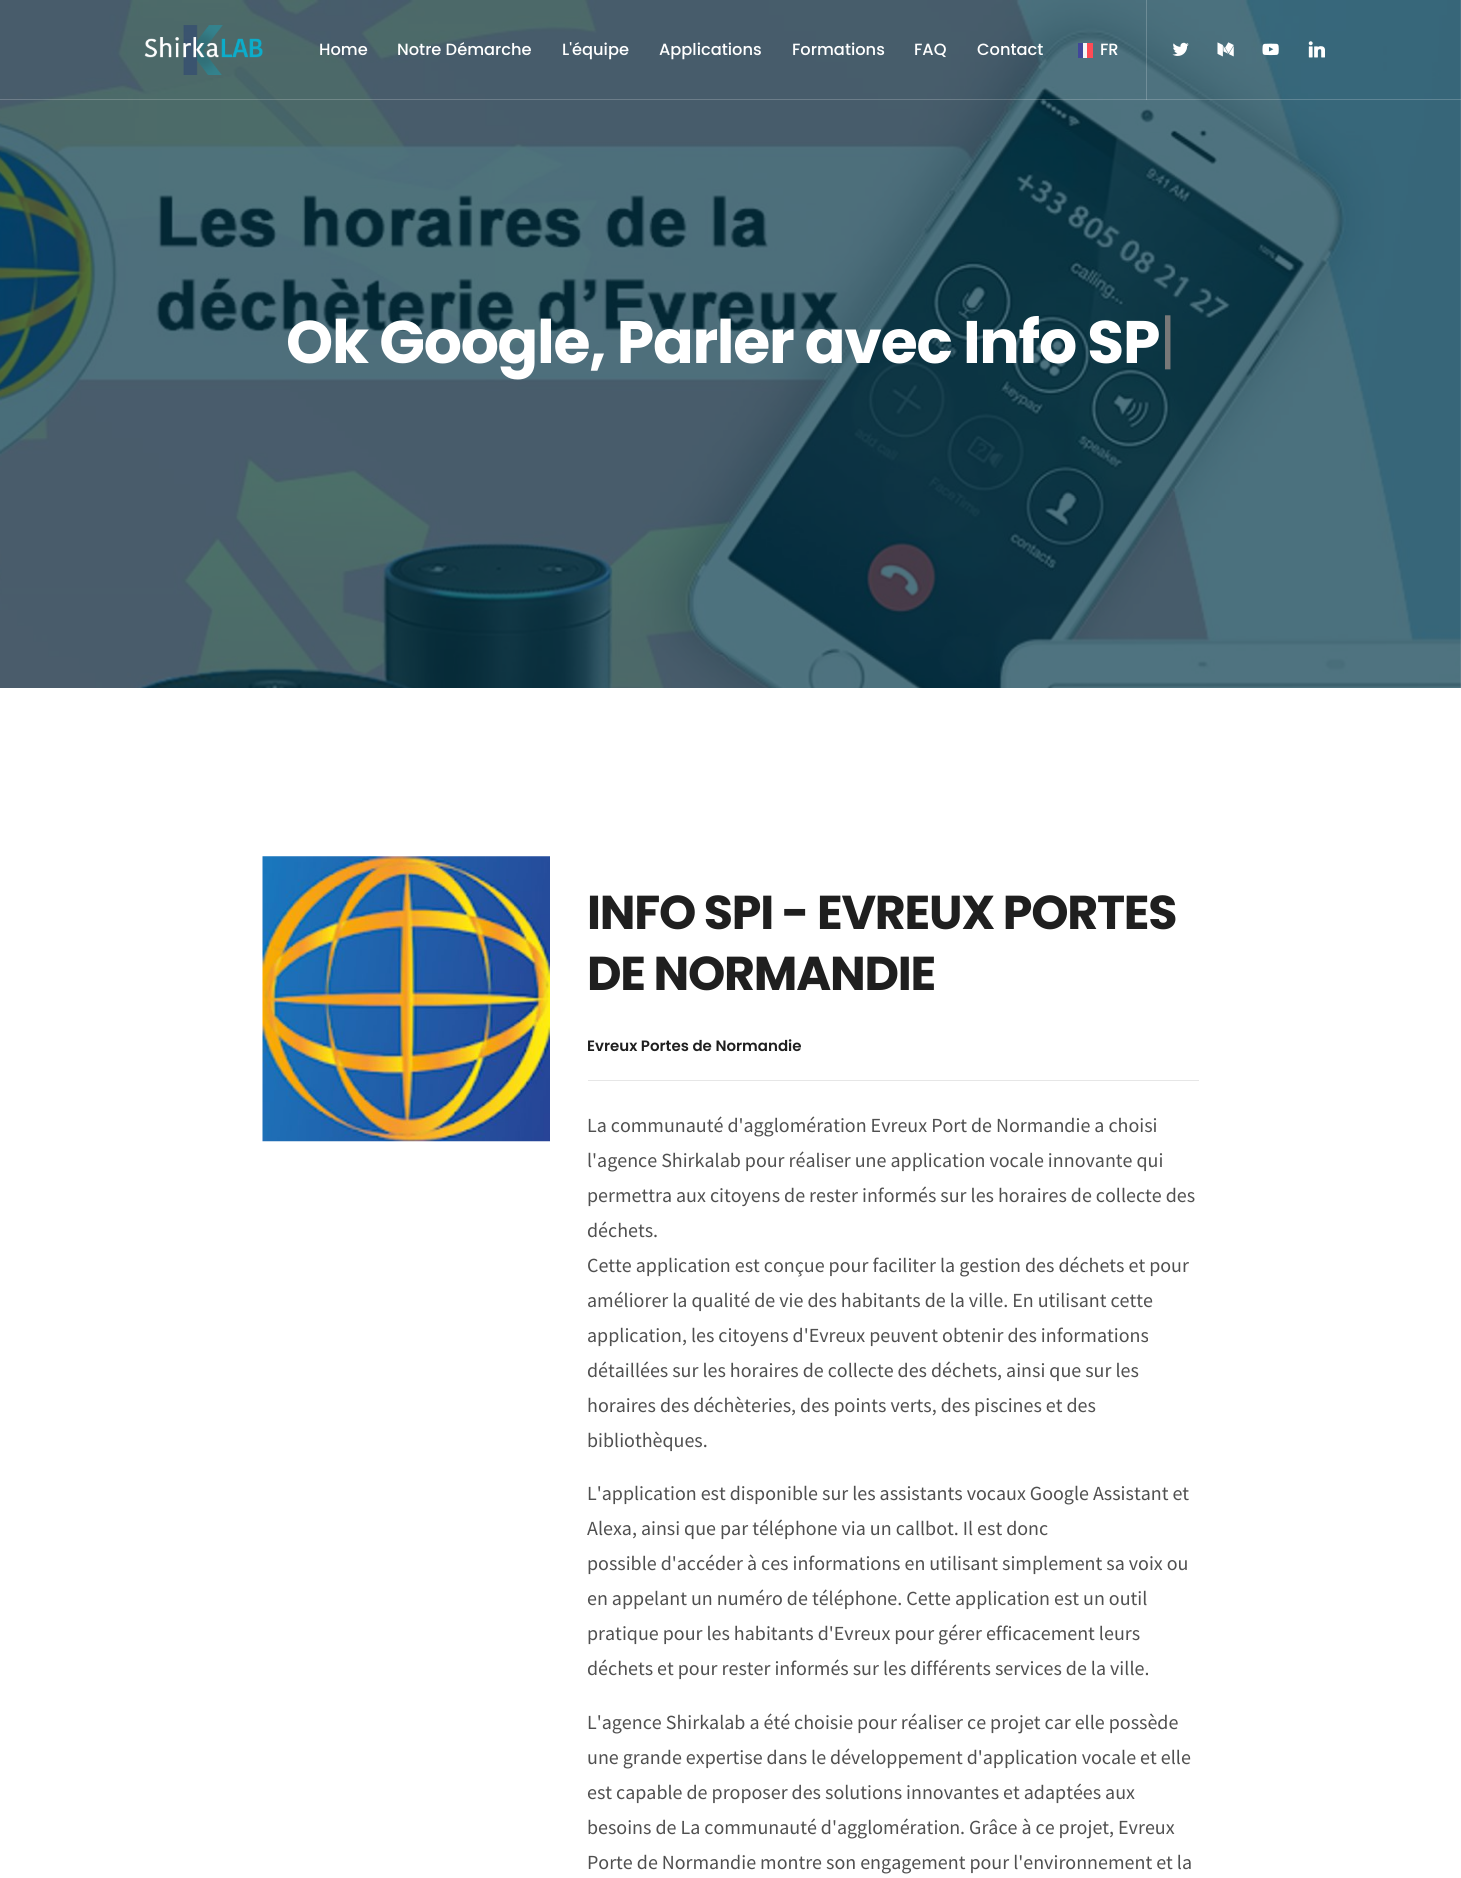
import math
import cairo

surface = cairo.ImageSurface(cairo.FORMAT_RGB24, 1461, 1878)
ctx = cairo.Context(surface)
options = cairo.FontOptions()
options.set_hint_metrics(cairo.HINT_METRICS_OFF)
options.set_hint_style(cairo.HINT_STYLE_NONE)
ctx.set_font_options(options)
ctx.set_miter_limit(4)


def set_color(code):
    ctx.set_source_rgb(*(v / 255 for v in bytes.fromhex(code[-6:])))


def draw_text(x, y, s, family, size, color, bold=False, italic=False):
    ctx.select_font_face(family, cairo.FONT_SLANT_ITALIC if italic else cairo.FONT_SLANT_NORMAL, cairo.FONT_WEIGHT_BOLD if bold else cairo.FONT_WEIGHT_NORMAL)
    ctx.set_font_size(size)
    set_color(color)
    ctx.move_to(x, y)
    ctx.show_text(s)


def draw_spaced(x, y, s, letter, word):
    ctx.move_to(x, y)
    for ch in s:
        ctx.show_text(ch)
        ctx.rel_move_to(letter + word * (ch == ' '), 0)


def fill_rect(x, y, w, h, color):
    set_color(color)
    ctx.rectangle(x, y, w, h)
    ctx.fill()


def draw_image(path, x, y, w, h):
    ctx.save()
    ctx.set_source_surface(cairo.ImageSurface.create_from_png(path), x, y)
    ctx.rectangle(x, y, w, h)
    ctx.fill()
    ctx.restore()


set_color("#ffffff")
ctx.paint()
draw_image("assets/img6.png", 0, 0, 1461, 688)
ctx.set_source_rgba(1, 1, 1, 0.2)
ctx.rectangle(0, 99, 1461, 1)
ctx.fill()
draw_image("assets/img1.png", 144, 25, 119, 50)
draw_text(319, 55, "Home", "Poppins Medium", 16.25, "#ffffff")
draw_text(397, 55, "Notre Démarche", "Poppins Medium", 16.25, "#ffffff")
draw_text(562, 55, "L'équipe", "Poppins Medium", 16.25, "#ffffff")
draw_text(659, 55, "Applications", "Poppins Medium", 16.25, "#ffffff")
draw_text(792, 55, "Formations", "Poppins Medium", 16.25, "#ffffff")
draw_text(914, 55, "FAQ", "Poppins Medium", 16.25, "#ffffff")
draw_text(977, 55, "Contact", "Poppins Medium", 16.25, "#ffffff")
fill_rect(1078, 43, 5, 15, "#41479b")
fill_rect(1083, 43, 4, 15, "#f5f5f5")
fill_rect(1087, 43, 6, 15, "#ff4b55")
draw_text(1100, 55, "FR", "Poppins Medium", 16.25, "#ffffff")
ctx.set_source_rgba(1, 1, 1, 0.2)
ctx.rectangle(1146, 0, 1, 100)
ctx.fill()
draw_image("assets/img2.png", 1172, 42, 17, 14)
draw_image("assets/img3.png", 1217, 42, 17, 15)
draw_image("assets/img4.png", 1262, 43, 17, 13)
draw_image("assets/img5.png", 1308, 41, 17, 17)
ctx.select_font_face("Poppins", cairo.FONT_SLANT_NORMAL, cairo.FONT_WEIGHT_BOLD)
ctx.set_font_size(60)
set_color("#ffffff")
draw_spaced(286, 363, "Ok Google, Parler avec Info SP", -1.25, 0)
ctx.select_font_face("Poppins")
set_color("#787878")
draw_spaced(1159, 363, "|", -1.25, 0)
draw_image("assets/img7.png", 262, 856, 288, 286)
ctx.select_font_face("Poppins", cairo.FONT_SLANT_NORMAL, cairo.FONT_WEIGHT_BOLD)
ctx.set_font_size(47.5)
set_color("#1f1f1f")
draw_spaced(587, 929, "INFO SPI - EVREUX PORTES", -1.25, 0)
draw_spaced(587, 990, "DE NORMANDIE", -1.25, 0)
draw_text(587, 1051, "Evreux Portes de Normandie", "Poppins SemiBold", 15, "#1f1f1f")
fill_rect(588, 1080, 611, 1, "#e6e6e6")
draw_text(587, 1132, "La communauté d'agglomération Evreux Port de Normandie a choisi", "Source Sans Pro", 20, "#505050")
draw_text(587, 1167, "l'agence Shirkalab pour réaliser une application vocale innovante qui", "Source Sans Pro", 20, "#505050")
draw_text(587, 1202, "permettra aux citoyens de rester informés sur les horaires de collecte des", "Source Sans Pro", 20, "#505050")
draw_text(587, 1237, "déchets.", "Source Sans Pro", 20, "#505050")
draw_text(587, 1272, "Cette application est conçue pour faciliter la gestion des déchets et pour", "Source Sans Pro", 20, "#505050")
draw_text(587, 1307, "améliorer la qualité de vie des habitants de la ville. En utilisant cette", "Source Sans Pro", 20, "#505050")
draw_text(587, 1342, "application, les citoyens d'Evreux peuvent obtenir des informations", "Source Sans Pro", 20, "#505050")
draw_text(587, 1377, "détaillées sur les horaires de collecte des déchets, ainsi que sur les", "Source Sans Pro", 20, "#505050")
draw_text(587, 1412, "horaires des déchèteries, des points verts, des piscines et des", "Source Sans Pro", 20, "#505050")
draw_text(587, 1447, "bibliothèques.", "Source Sans Pro", 20, "#505050")
draw_text(587, 1500, "L'application est disponible sur les assistants vocaux Google Assistant et", "Source Sans Pro", 20, "#505050")
draw_text(587, 1535, "Alexa, ainsi que par téléphone via un callbot. Il est donc", "Source Sans Pro", 20, "#505050")
draw_text(587, 1570, "possible d'accéder à ces informations en utilisant simplement sa voix ou", "Source Sans Pro", 20, "#505050")
draw_text(587, 1605, "en appelant un numéro de téléphone. Cette application est un outil", "Source Sans Pro", 20, "#505050")
draw_text(587, 1640, "pratique pour les habitants d'Evreux pour gérer efficacement leurs", "Source Sans Pro", 20, "#505050")
draw_text(587, 1675, "déchets et pour rester informés sur les différents services de la ville.", "Source Sans Pro", 20, "#505050")
draw_text(587, 1729, "L'agence Shirkalab a été choisie pour réaliser ce projet car elle possède", "Source Sans Pro", 20, "#505050")
draw_text(587, 1764, "une grande expertise dans le développement d'application vocale et elle", "Source Sans Pro", 20, "#505050")
draw_text(587, 1799, "est capable de proposer des solutions innovantes et adaptées aux", "Source Sans Pro", 20, "#505050")
draw_text(587, 1834, "besoins de La communauté d'agglomération. Grâce à ce projet, Evreux", "Source Sans Pro", 20, "#505050")
draw_text(587, 1869, "Porte de Normandie montre son engagement pour l'environnement et la", "Source Sans Pro", 20, "#505050")
surface.write_to_png("output.png")
